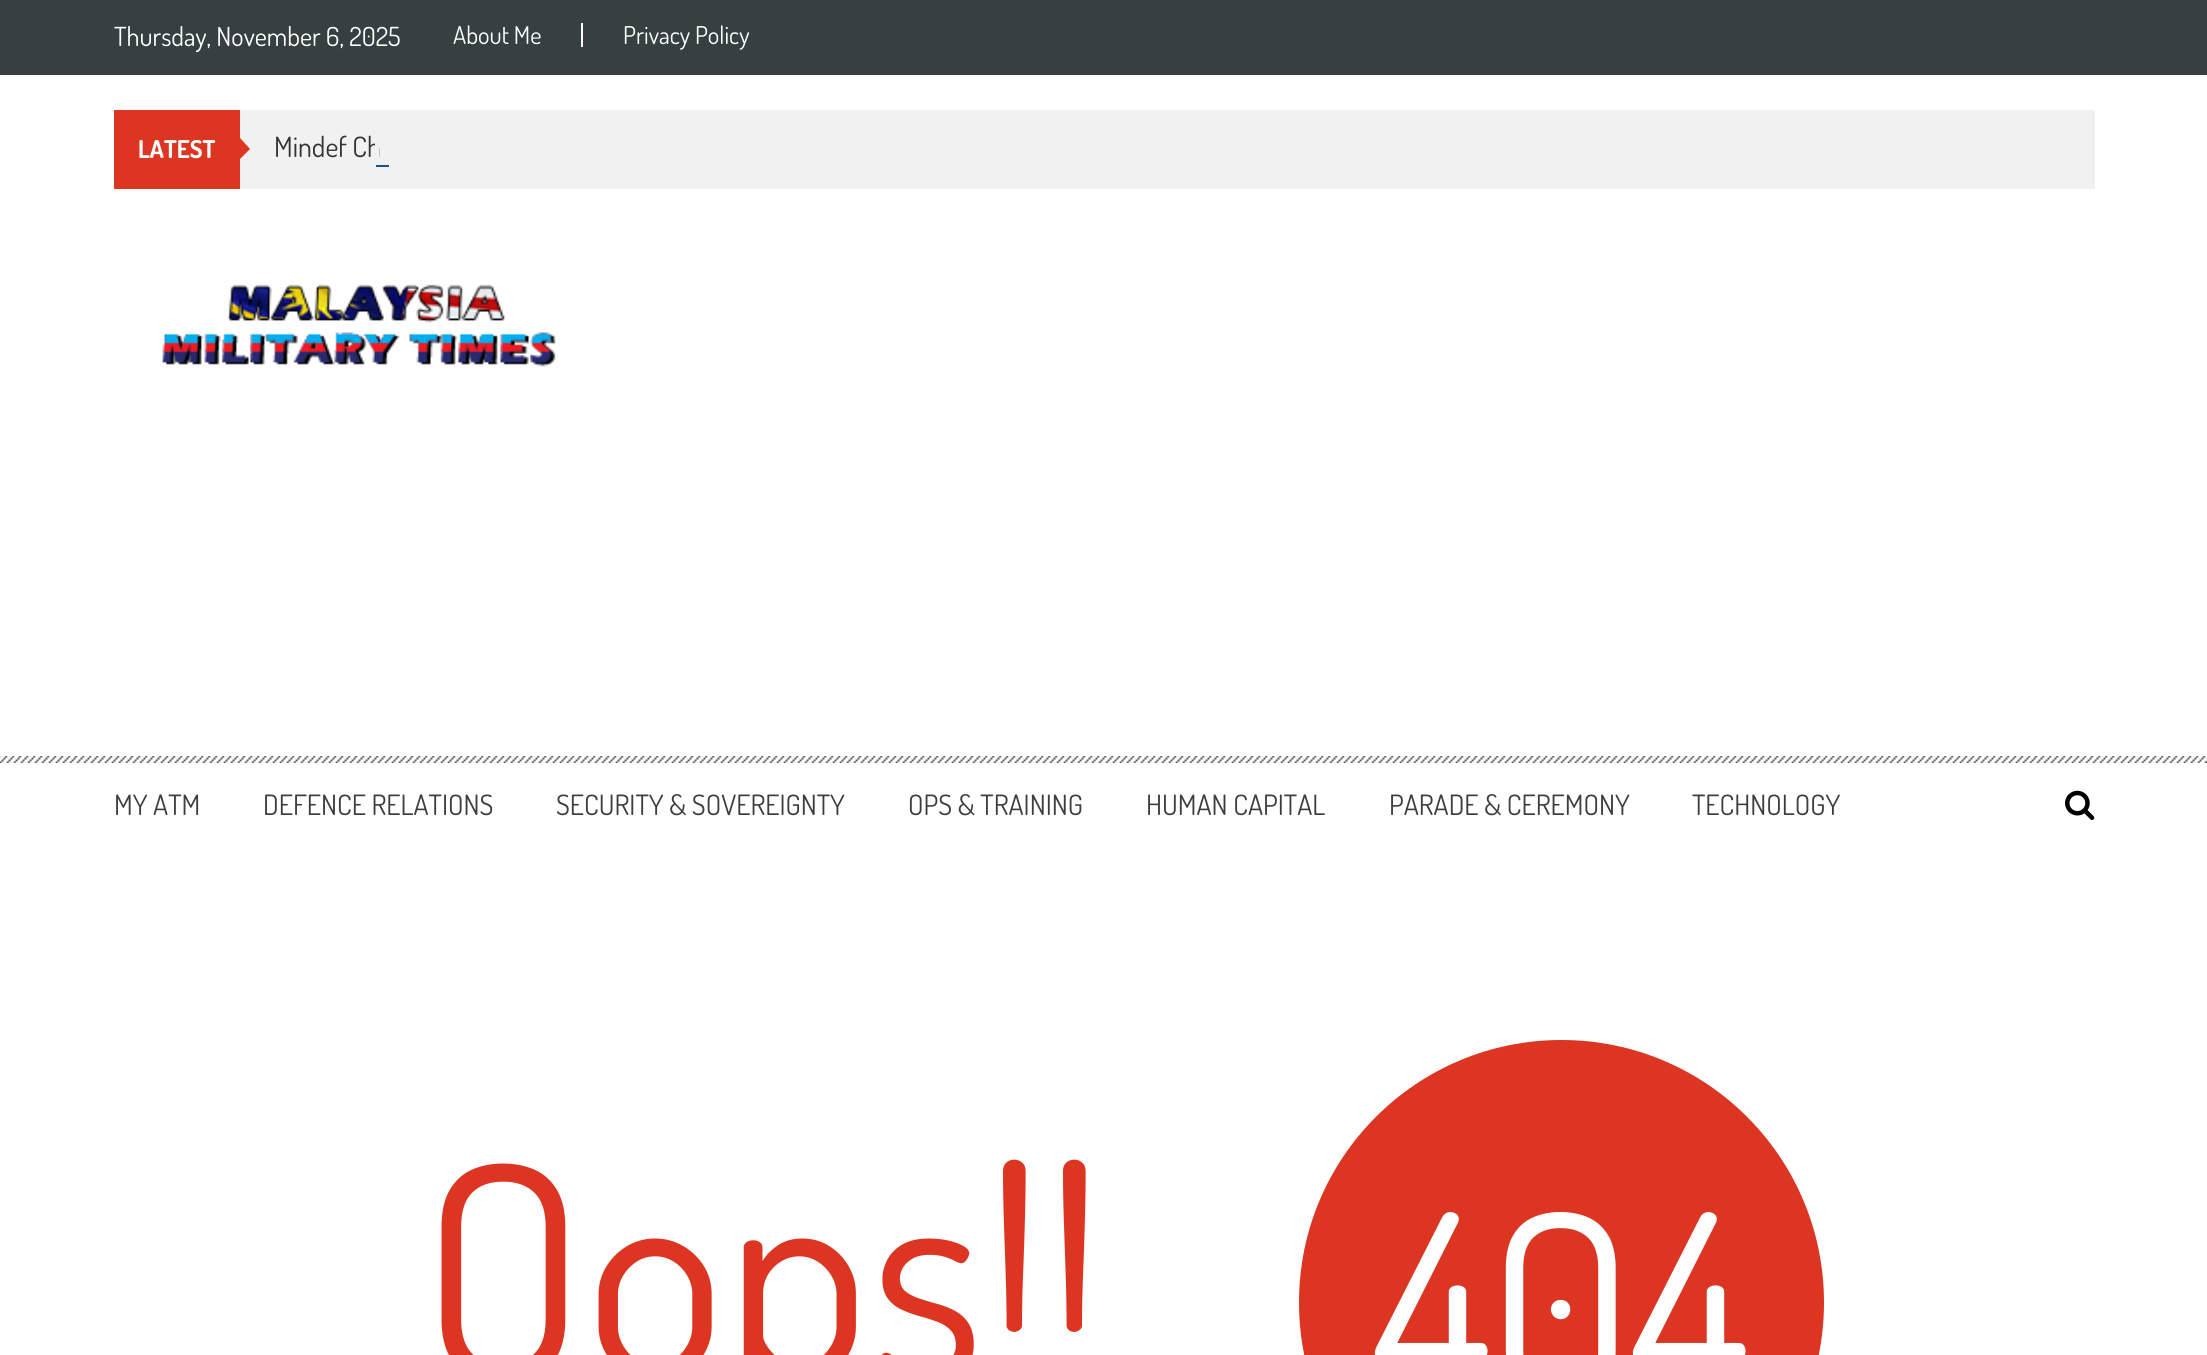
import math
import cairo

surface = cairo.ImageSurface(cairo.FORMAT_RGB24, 2207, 1355)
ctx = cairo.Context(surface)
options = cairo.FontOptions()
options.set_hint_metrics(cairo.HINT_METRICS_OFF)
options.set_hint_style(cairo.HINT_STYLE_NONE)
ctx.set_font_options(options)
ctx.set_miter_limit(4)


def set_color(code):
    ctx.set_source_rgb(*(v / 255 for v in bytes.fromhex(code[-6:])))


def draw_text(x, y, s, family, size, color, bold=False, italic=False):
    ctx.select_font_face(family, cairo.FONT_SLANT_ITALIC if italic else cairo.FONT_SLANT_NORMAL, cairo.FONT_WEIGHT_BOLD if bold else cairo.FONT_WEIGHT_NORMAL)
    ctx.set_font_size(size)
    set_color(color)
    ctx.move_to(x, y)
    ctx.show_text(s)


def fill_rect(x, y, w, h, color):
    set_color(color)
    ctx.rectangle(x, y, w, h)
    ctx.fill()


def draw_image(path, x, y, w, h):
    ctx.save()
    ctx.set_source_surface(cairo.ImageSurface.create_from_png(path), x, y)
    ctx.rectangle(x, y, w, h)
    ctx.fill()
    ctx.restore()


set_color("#ffffff")
ctx.paint()
fill_rect(0, 0, 2207, 75, "#36403f")
draw_text(114, 46, "Thursday, November 6, 2025", "Dosis", 26.25, "#ffffff")
draw_text(453, 44, "About Me", "Dosis", 24.5, "#ffffff")
fill_rect(581, 23, 2, 24, "#ffffff")
draw_text(623, 44, "Privacy Policy", "Dosis", 24.5, "#ffffff")
fill_rect(240, 110, 1855, 79, "#f1f1f1")
fill_rect(114, 110, 126, 79, "#dc3522")
draw_text(138, 158, "LATEST", "Dosis", 24.5, "#ffffff", bold=True)
set_color("#dc3522")
ctx.new_path()
ctx.move_to(240, 159)
ctx.line_to(240, 138)
ctx.line_to(250, 149)
ctx.close_path()
ctx.fill()
draw_text(274, 157, "Mindef Ch", "Dosis", 28, "#323232")
fill_rect(375, 143, 4, 14, "#f1f1f1")
fill_rect(376, 165, 13, 2, "#1f527b")
draw_image("assets/img1.png", 0, 756, 2207, 7)
draw_image("assets/img2.png", 162, 284, 394, 83)
draw_text(114, 815, "MY ATM", "Dosis", 28, "#3d3d3d")
draw_text(263, 815, "DEFENCE RELATIONS", "Dosis", 28, "#3d3d3d")
draw_text(556, 815, "SECURITY & SOVEREIGNTY", "Dosis", 28, "#3d3d3d")
draw_text(908, 815, "OPS & TRAINING", "Dosis", 28, "#3d3d3d")
draw_text(1146, 815, "HUMAN CAPITAL", "Dosis", 28, "#3d3d3d")
draw_text(1389, 815, "PARADE & CEREMONY", "Dosis", 28, "#3d3d3d")
draw_text(1692, 815, "TECHNOLOGY", "Dosis", 28, "#3d3d3d")
draw_image("assets/img3.png", 2065, 790, 30, 30)
draw_text(421, 1381, "Oops!!", "Dosis", 297.5, "#dc3522")
ctx.new_path()
ctx.arc(1561.5, 1302.5, 262.5, 0, 2 * math.pi)
ctx.fill()
draw_text(1373, 1405, "404", "Dosis", 264, "#ffffff")
surface.write_to_png("output.png")
